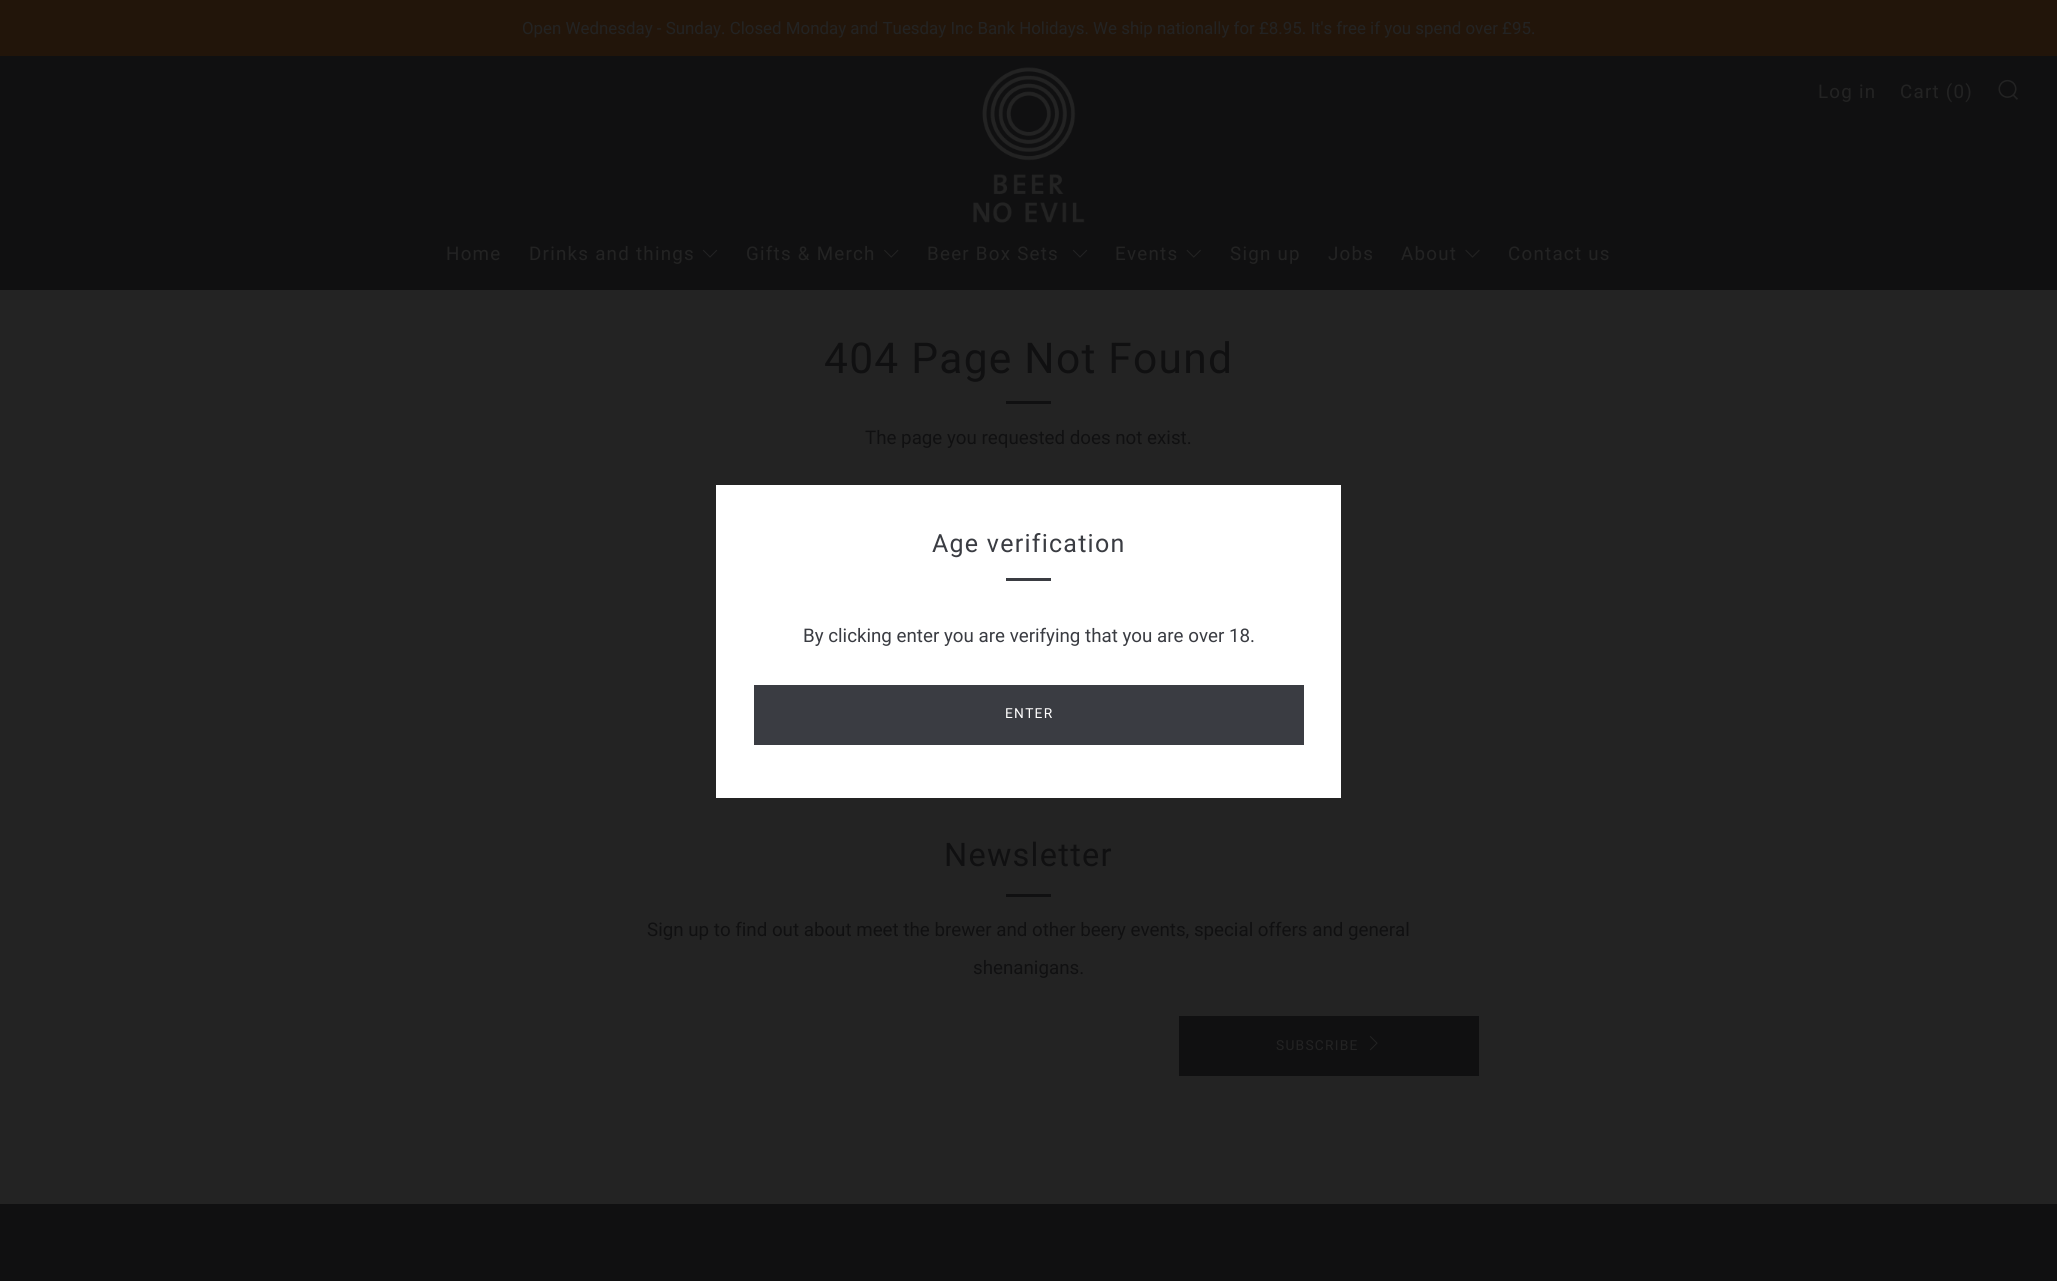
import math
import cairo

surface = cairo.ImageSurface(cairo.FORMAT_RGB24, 2057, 1281)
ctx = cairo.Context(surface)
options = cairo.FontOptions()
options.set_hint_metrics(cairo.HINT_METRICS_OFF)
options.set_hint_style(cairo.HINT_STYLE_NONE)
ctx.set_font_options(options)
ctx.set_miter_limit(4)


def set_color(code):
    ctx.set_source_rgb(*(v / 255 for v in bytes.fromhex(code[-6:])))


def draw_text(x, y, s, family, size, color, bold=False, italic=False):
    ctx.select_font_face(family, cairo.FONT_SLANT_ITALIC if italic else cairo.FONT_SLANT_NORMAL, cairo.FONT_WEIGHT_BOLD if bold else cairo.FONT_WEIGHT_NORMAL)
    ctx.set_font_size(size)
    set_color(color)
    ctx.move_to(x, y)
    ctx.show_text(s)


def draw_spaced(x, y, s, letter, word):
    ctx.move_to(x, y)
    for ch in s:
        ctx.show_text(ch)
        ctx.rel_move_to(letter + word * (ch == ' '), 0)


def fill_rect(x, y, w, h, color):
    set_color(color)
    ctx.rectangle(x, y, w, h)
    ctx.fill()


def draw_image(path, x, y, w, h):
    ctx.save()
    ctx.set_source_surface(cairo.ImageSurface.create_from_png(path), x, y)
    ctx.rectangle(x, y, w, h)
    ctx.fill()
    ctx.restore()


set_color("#232323")
ctx.paint()
fill_rect(0, 0, 2057, 56, "#22150a")
draw_text(522, 34, "Open Wednesday - Sunday. Closed Monday and Tuesday Inc Bank Holidays. We ship nationally for £8.95. It's free if you spend over £95.", "Roboto", 16.88, "#232323")
fill_rect(0, 56, 2057, 234, "#101011")
draw_image("assets/img1.png", 973, 67, 112, 156)
ctx.set_font_size(18.75)
set_color("#232323")
draw_spaced(1818, 98, "Log in", 1.25, 0)
draw_spaced(1900, 98, "Cart (0)", 1.25, 0)
draw_image("assets/img2.png", 1998, 79, 20, 21)
draw_spaced(446, 260, "Home", 1.25, 0)
draw_spaced(529, 260, "Drinks and things", 1.25, 0)
draw_image("assets/img3.png", 702, 249, 16, 9)
draw_spaced(746, 260, "Gifts & Merch", 1.25, 0)
draw_image("assets/img4.png", 884, 249, 15, 9)
draw_spaced(927, 260, "Beer Box Sets", 1.25, 0)
draw_image("assets/img3.png", 1072, 249, 16, 9)
draw_spaced(1115, 260, "Events", 1.25, 0)
draw_image("assets/img5.png", 1186, 249, 15, 9)
draw_spaced(1230, 260, "Sign up", 1.25, 0)
draw_spaced(1328, 260, "Jobs", 1.25, 0)
draw_spaced(1401, 260, "About", 1.25, 0)
draw_image("assets/img6.png", 1465, 249, 15, 9)
draw_spaced(1508, 260, "Contact us", 1.25, 0)
ctx.set_font_size(42.5)
set_color("#101011")
draw_spaced(824, 373, "404 Page Not Found", 1.25, 0)
fill_rect(1006, 401, 45, 3, "#101011")
draw_text(865, 444, "The page you requested does not exist.", "Roboto", 18.75, "#101011")
ctx.set_font_size(32.5)
draw_spaced(944, 866, "Newsletter", 1.25, 0)
fill_rect(1006, 894, 45, 3, "#101011")
draw_text(647, 936, "Sign up to find out about meet the brewer and other beery events, special offers and general", "Roboto", 18.75, "#101011")
draw_text(973, 974, "shenanigans.", "Roboto", 18.75, "#101011")
fill_rect(1179, 1016, 300, 60, "#101011")
ctx.set_font_size(13.75)
set_color("#232323")
draw_spaced(1276, 1050, "SUBSCRIBE", 1.25, 0)
draw_image("assets/img7.png", 1369, 1036, 9, 15)
fill_rect(0, 1204, 2057, 77, "#101011")
fill_rect(716, 485, 625, 313, "#ffffff")
ctx.set_font_size(25)
set_color("#3a3c42")
draw_spaced(932, 552, "Age verification", 1.25, 0)
fill_rect(1006, 578, 45, 3, "#3a3c42")
draw_text(803, 642, "By clicking enter you are verifying that you are over 18.", "Roboto", 18.75, "#3a3c42")
fill_rect(754, 685, 550, 60, "#3a3c42")
ctx.set_font_size(13.75)
set_color("#ffffff")
draw_spaced(1005, 718, "ENTER", 1.25, 0)
surface.write_to_png("output.png")
